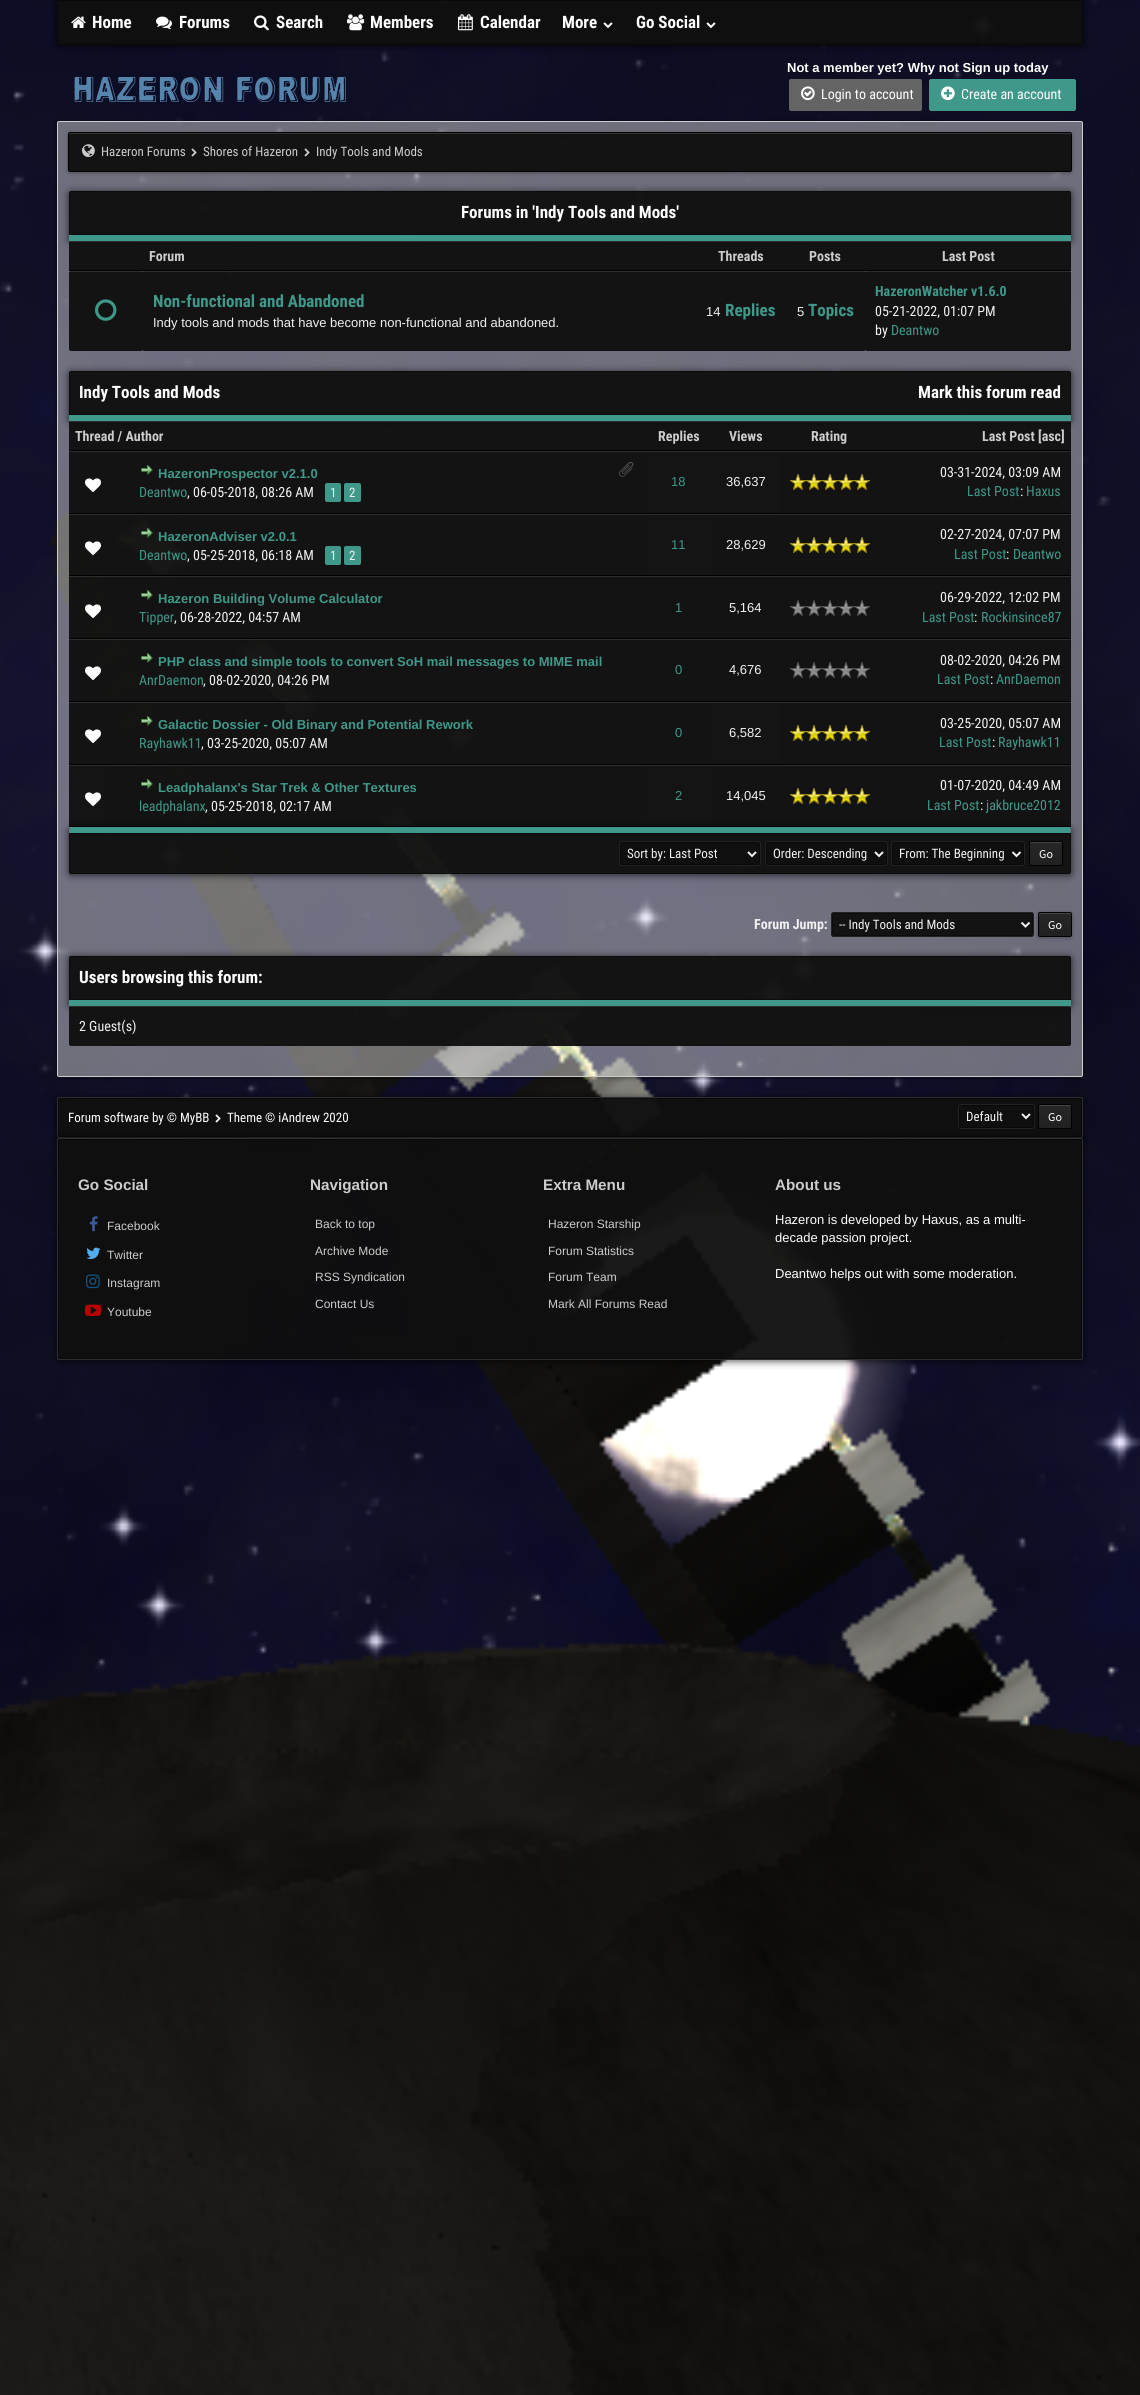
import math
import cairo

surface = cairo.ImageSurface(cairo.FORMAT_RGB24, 1140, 2395)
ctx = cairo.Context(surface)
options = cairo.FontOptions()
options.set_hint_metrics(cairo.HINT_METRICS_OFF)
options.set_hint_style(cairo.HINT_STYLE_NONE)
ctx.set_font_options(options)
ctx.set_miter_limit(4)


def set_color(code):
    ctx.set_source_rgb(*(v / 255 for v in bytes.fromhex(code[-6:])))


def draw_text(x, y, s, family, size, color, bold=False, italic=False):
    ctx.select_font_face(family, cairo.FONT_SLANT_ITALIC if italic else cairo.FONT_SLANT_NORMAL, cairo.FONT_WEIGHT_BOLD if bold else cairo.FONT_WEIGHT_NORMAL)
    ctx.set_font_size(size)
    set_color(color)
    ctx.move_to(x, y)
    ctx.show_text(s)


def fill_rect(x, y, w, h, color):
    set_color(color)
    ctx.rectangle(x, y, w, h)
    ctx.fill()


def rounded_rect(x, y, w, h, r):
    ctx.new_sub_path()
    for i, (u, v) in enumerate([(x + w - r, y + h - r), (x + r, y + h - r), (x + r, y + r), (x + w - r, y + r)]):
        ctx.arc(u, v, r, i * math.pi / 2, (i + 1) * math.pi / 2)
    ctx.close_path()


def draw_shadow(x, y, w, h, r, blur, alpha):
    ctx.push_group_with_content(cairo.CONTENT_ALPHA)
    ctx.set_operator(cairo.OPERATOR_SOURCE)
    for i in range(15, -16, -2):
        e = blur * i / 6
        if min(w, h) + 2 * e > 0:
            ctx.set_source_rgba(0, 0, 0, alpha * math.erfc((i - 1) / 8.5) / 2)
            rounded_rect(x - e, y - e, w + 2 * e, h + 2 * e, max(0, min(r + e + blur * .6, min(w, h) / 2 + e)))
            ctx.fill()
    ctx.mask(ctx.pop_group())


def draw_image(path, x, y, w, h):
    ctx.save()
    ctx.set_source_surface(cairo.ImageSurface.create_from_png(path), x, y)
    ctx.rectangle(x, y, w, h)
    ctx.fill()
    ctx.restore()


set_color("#ffffff")
ctx.paint()
draw_image("assets/img1.png", 0, 0, 1140, 2395)
ctx.save()
ctx.set_fill_rule(cairo.FILL_RULE_EVEN_ODD)
ctx.new_path()
ctx.move_to(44, 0)
ctx.line_to(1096, 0)
ctx.line_to(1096, 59)
ctx.line_to(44, 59)
ctx.close_path()
ctx.move_to(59, 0)
ctx.line_to(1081, 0)
ctx.curve_to(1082, 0, 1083, 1, 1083, 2)
ctx.line_to(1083, 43)
ctx.curve_to(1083, 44, 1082, 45, 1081, 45)
ctx.line_to(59, 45)
ctx.curve_to(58, 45, 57, 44, 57, 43)
ctx.line_to(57, 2)
ctx.curve_to(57, 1, 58, 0, 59, 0)
ctx.close_path()
ctx.clip()
set_color("#000000")
draw_shadow(57, 1, 1026, 45, 2, 4, 0.7)
ctx.restore()
ctx.set_source_rgba(0.059, 0.059, 0.059, 0.95)
rounded_rect(57, 0, 1026, 45, 2)
ctx.fill()
rounded_rect(57.5, 0.5, 1025, 44, 1.5)
ctx.set_source_rgba(0, 0, 0, 0.4)
ctx.set_line_width(1)
ctx.stroke()
draw_image("assets/img2.png", 71, 16, 15, 12)
draw_text(92, 28, "Home", "Roboto Condensed", 17, "#ffffff", bold=True)
draw_image("assets/img3.png", 156, 16, 16, 14)
draw_text(179, 28, "Forums", "Roboto Condensed", 17, "#ffffff", bold=True)
draw_image("assets/img4.png", 254, 15, 15, 16)
draw_text(276, 28, "Search", "Roboto Condensed", 17, "#ffffff", bold=True)
draw_image("assets/img5.png", 347, 14, 18, 17)
draw_text(370, 28, "Members", "Roboto Condensed", 17, "#ffffff", bold=True)
draw_image("assets/img6.png", 458, 14, 15, 17)
draw_text(480, 28, "Calendar", "Roboto Condensed", 17, "#ffffff", bold=True)
draw_text(562, 28, "More", "Roboto Condensed", 17, "#ffffff", bold=True)
draw_image("assets/img7.png", 603, 22, 10, 7)
draw_text(636, 28, "Go Social", "Roboto Condensed", 17, "#ffffff", bold=True)
draw_image("assets/img7.png", 706, 22, 10, 7)
draw_image("assets/img8.png", 74, 77, 272, 25)
draw_text(787, 72, "Not a member yet? Why not Sign up today", "Liberation Sans", 13, "#ffffff", bold=True)
set_color("#646464")
rounded_rect(789, 79, 133, 32, 2)
ctx.fill()
draw_image("assets/img9.png", 801, 86, 14, 15)
draw_text(821, 99, "Login to account", "Roboto Condensed", 14, "#ffffff")
set_color("#3f9889")
rounded_rect(929, 79, 147, 32, 2)
ctx.fill()
draw_image("assets/img10.png", 941, 86, 14, 15)
draw_text(961, 99, "Create an account", "Roboto Condensed", 14, "#ffffff")
ctx.save()
ctx.set_fill_rule(cairo.FILL_RULE_EVEN_ODD)
ctx.new_path()
ctx.move_to(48, 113)
ctx.line_to(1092, 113)
ctx.line_to(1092, 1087)
ctx.line_to(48, 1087)
ctx.close_path()
ctx.move_to(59, 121)
ctx.line_to(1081, 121)
ctx.curve_to(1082, 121, 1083, 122, 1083, 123)
ctx.line_to(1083, 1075)
ctx.curve_to(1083, 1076, 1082, 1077, 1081, 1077)
ctx.line_to(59, 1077)
ctx.curve_to(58, 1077, 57, 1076, 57, 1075)
ctx.line_to(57, 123)
ctx.curve_to(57, 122, 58, 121, 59, 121)
ctx.close_path()
ctx.clip()
set_color("#000000")
draw_shadow(57, 122, 1026, 956, 2, 2.5, 0.4)
ctx.restore()
ctx.set_source_rgba(1, 1, 1, 0.4)
rounded_rect(57.5, 121.5, 1025, 955, 1.5)
ctx.fill_preserve()
set_color("#cccccc")
ctx.stroke()
ctx.save()
ctx.set_fill_rule(cairo.FILL_RULE_EVEN_ODD)
ctx.new_path()
ctx.move_to(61, 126)
ctx.line_to(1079, 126)
ctx.line_to(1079, 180)
ctx.line_to(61, 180)
ctx.close_path()
ctx.move_to(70, 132)
ctx.line_to(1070, 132)
ctx.curve_to(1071, 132, 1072, 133, 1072, 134)
ctx.line_to(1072, 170)
ctx.curve_to(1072, 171, 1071, 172, 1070, 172)
ctx.line_to(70, 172)
ctx.curve_to(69, 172, 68, 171, 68, 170)
ctx.line_to(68, 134)
ctx.curve_to(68, 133, 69, 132, 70, 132)
ctx.close_path()
ctx.clip()
set_color("#000000")
draw_shadow(68, 133, 1004, 40, 2, 2, 0.3)
ctx.restore()
ctx.set_source_rgba(0.059, 0.059, 0.059, 0.95)
rounded_rect(69, 133, 1002, 38, 1)
ctx.fill()
ctx.set_source_rgba(1, 1, 1, 0.13)
ctx.new_path()
ctx.move_to(70, 134)
ctx.line_to(1070, 134)
ctx.line_to(1071, 136)
ctx.line_to(1071, 133)
ctx.line_to(1070, 133)
ctx.line_to(70, 133)
ctx.line_to(69, 134)
ctx.line_to(69, 135)
ctx.close_path()
ctx.fill()
rounded_rect(68.5, 132.5, 1003, 39, 1.5)
set_color("#000000")
ctx.stroke()
draw_image("assets/img11.png", 82, 144, 13, 14)
draw_text(101, 156, "Hazeron Forums", "Roboto Condensed", 13, "#cccccc")
draw_image("assets/img12.png", 191, 148, 6, 9)
draw_text(203, 156, "Shores of Hazeron", "Roboto Condensed", 13, "#cccccc")
draw_image("assets/img13.png", 304, 148, 6, 9)
draw_text(316, 156, "Indy Tools and Mods", "Roboto Condensed", 13, "#cccccc")
ctx.save()
ctx.set_fill_rule(cairo.FILL_RULE_EVEN_ODD)
ctx.new_path()
ctx.move_to(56, 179)
ctx.line_to(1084, 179)
ctx.line_to(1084, 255)
ctx.line_to(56, 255)
ctx.close_path()
ctx.move_to(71, 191)
ctx.line_to(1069, 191)
ctx.curve_to(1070, 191, 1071, 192, 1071, 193)
ctx.line_to(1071, 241)
ctx.line_to(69, 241)
ctx.line_to(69, 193)
ctx.curve_to(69, 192, 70, 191, 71, 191)
ctx.close_path()
ctx.clip()
set_color("#000000")
draw_shadow(69, 192, 1002, 50, 2, 4, 0.7)
ctx.restore()
ctx.set_source_rgba(0.059, 0.059, 0.059, 0.95)
ctx.new_path()
ctx.move_to(71, 191)
ctx.line_to(1069, 191)
ctx.curve_to(1070, 191, 1071, 192, 1071, 193)
ctx.line_to(1071, 235)
ctx.line_to(69, 235)
ctx.line_to(69, 193)
ctx.curve_to(69, 192, 70, 191, 71, 191)
ctx.close_path()
ctx.fill()
ctx.new_path()
ctx.move_to(71, 191.5)
ctx.line_to(1069, 191.5)
ctx.curve_to(1070, 191.5, 1070.5, 192, 1070.5, 193)
ctx.line_to(1070.5, 234.5)
ctx.line_to(69.5, 234.5)
ctx.line_to(69.5, 193)
ctx.curve_to(69.5, 192, 70, 191.5, 71, 191.5)
ctx.close_path()
ctx.set_source_rgba(0, 0, 0, 0.4)
ctx.stroke()
fill_rect(69, 235, 1002, 6, "#3f9889")
draw_text(461, 218, "Forums in 'Indy Tools and Mods'", "Roboto Condensed", 17, "#ffffff", bold=True)
ctx.set_source_rgba(0.059, 0.059, 0.059, 0.95)
ctx.rectangle(69, 242, 74, 28)
ctx.fill()
fill_rect(69, 241, 1002, 1, "#2e2e2e")
fill_rect(69, 270, 1002, 1, "#000000")
ctx.set_source_rgba(0.059, 0.059, 0.059, 0.95)
ctx.rectangle(143, 242, 553, 28)
ctx.fill()
draw_text(149, 261, "Forum", "Roboto Condensed", 14, "#cccccc", bold=True)
ctx.set_source_rgba(0.059, 0.059, 0.059, 0.95)
ctx.rectangle(696, 242, 89, 28)
ctx.fill()
draw_text(718, 261, "Threads", "Roboto Condensed", 14, "#cccccc", bold=True)
ctx.set_source_rgba(0.059, 0.059, 0.059, 0.95)
ctx.rectangle(785, 242, 80, 28)
ctx.fill()
draw_text(809, 261, "Posts", "Roboto Condensed", 14, "#cccccc", bold=True)
ctx.set_source_rgba(0.059, 0.059, 0.059, 0.95)
ctx.rectangle(865, 242, 206, 28)
ctx.fill()
draw_text(942, 261, "Last Post", "Roboto Condensed", 14, "#cccccc", bold=True)
ctx.set_source_rgba(0.059, 0.059, 0.059, 0.95)
rounded_rect(69, 271, 74, 80, 2)
ctx.fill()
fill_rect(70, 271, 72, 1, "#2e2e2e")
draw_image("assets/img14.png", 95, 299, 22, 22)
ctx.set_source_rgba(0.059, 0.059, 0.059, 0.95)
ctx.rectangle(143, 272, 553, 79)
ctx.fill()
fill_rect(143, 271, 722, 1, "#2e2e2e")
draw_text(153, 307, "Non-functional and Abandoned", "Roboto Condensed", 17, "#3f9889", bold=True)
draw_text(153, 327, "Indy tools and mods that have become non-functional and abandoned.", "Liberation Sans", 13, "#f1f1f1")
ctx.set_source_rgba(0.059, 0.059, 0.059, 0.95)
ctx.rectangle(696, 272, 89, 79)
ctx.fill()
draw_text(706, 316, "14", "Liberation Sans", 13, "#f1f1f1")
draw_text(725, 316, "Replies", "Roboto Condensed", 17, "#3f9889", bold=True)
ctx.set_source_rgba(0.059, 0.059, 0.059, 0.95)
ctx.rectangle(785, 272, 80, 79)
ctx.fill()
draw_text(797, 316, "5", "Liberation Sans", 13, "#f1f1f1")
draw_text(808, 316, "Topics", "Roboto Condensed", 17, "#3f9889", bold=True)
ctx.set_source_rgba(0.059, 0.059, 0.059, 0.95)
rounded_rect(865, 271, 206, 80, 2)
ctx.fill()
fill_rect(866, 271, 204, 1, "#2e2e2e")
draw_text(875, 296, "HazeronWatcher v1.6.0", "Roboto Condensed", 14, "#3f9889", bold=True)
draw_text(875, 316, "05-21-2022, 01:07 PM", "Roboto Condensed", 14, "#f1f1f1")
draw_text(875, 335, "by", "Roboto Condensed", 14, "#f1f1f1")
draw_text(891, 335, "Deantwo", "Roboto Condensed", 14, "#3f9889")
ctx.save()
ctx.set_fill_rule(cairo.FILL_RULE_EVEN_ODD)
ctx.new_path()
ctx.move_to(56, 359)
ctx.line_to(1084, 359)
ctx.line_to(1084, 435)
ctx.line_to(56, 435)
ctx.close_path()
ctx.move_to(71, 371)
ctx.line_to(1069, 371)
ctx.curve_to(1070, 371, 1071, 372, 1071, 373)
ctx.line_to(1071, 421)
ctx.line_to(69, 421)
ctx.line_to(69, 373)
ctx.curve_to(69, 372, 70, 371, 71, 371)
ctx.close_path()
ctx.clip()
set_color("#000000")
draw_shadow(69, 372, 1002, 50, 2, 4, 0.7)
ctx.restore()
ctx.set_source_rgba(0.059, 0.059, 0.059, 0.95)
ctx.new_path()
ctx.move_to(71, 371)
ctx.line_to(1069, 371)
ctx.curve_to(1070, 371, 1071, 372, 1071, 373)
ctx.line_to(1071, 415)
ctx.line_to(69, 415)
ctx.line_to(69, 373)
ctx.curve_to(69, 372, 70, 371, 71, 371)
ctx.close_path()
ctx.fill()
ctx.new_path()
ctx.move_to(71, 371.5)
ctx.line_to(1069, 371.5)
ctx.curve_to(1070, 371.5, 1070.5, 372, 1070.5, 373)
ctx.line_to(1070.5, 414.5)
ctx.line_to(69.5, 414.5)
ctx.line_to(69.5, 373)
ctx.curve_to(69.5, 372, 70, 371.5, 71, 371.5)
ctx.close_path()
ctx.set_source_rgba(0, 0, 0, 0.4)
ctx.stroke()
fill_rect(69, 415, 1002, 6, "#3f9889")
draw_text(79, 398, "Indy Tools and Mods", "Roboto Condensed", 17, "#ffffff", bold=True)
draw_text(918, 398, "Mark this forum read", "Roboto Condensed", 17, "#ffffff", bold=True)
ctx.set_source_rgba(0.059, 0.059, 0.059, 0.95)
ctx.rectangle(69, 422, 576, 28)
ctx.fill()
fill_rect(69, 421, 1002, 1, "#2e2e2e")
fill_rect(69, 450, 1002, 1, "#000000")
draw_text(75, 441, "Thread / Author", "Roboto Condensed", 14, "#cccccc", bold=True)
ctx.set_source_rgba(0.059, 0.059, 0.059, 0.95)
ctx.rectangle(645, 422, 67, 28)
ctx.fill()
draw_text(658, 441, "Replies", "Roboto Condensed", 14, "#cccccc", bold=True)
ctx.set_source_rgba(0.059, 0.059, 0.059, 0.95)
ctx.rectangle(712, 422, 68, 28)
ctx.fill()
draw_text(729, 441, "Views", "Roboto Condensed", 14, "#cccccc", bold=True)
ctx.set_source_rgba(0.059, 0.059, 0.059, 0.95)
ctx.rectangle(780, 422, 100, 28)
ctx.fill()
draw_text(811, 441, "Rating", "Roboto Condensed", 14, "#cccccc", bold=True)
ctx.set_source_rgba(0.059, 0.059, 0.059, 0.95)
ctx.rectangle(880, 422, 191, 28)
ctx.fill()
draw_text(982, 441, "Last Post [asc]", "Roboto Condensed", 14, "#cccccc", bold=True)
ctx.set_source_rgba(0.059, 0.059, 0.059, 0.95)
ctx.rectangle(69, 452, 36, 61)
ctx.fill()
fill_rect(69, 451, 1002, 1, "#2e2e2e")
fill_rect(69, 513, 1002, 1, "#000000")
draw_image("assets/img15.png", 85, 478, 16, 15)
ctx.set_source_rgba(0.059, 0.059, 0.059, 0.95)
ctx.rectangle(105, 452, 24, 61)
ctx.fill()
ctx.rectangle(129, 452, 516, 61)
ctx.fill()
draw_image("assets/img16.png", 141, 465, 12, 10)
draw_text(158, 478, "HazeronProspector v2.1.0", "Liberation Sans", 13, "#3f9889", bold=True)
draw_text(139, 497, "Deantwo", "Roboto Condensed", 14, "#3f9889")
draw_text(187, 497, ", 06-05-2018, 08:26 AM", "Roboto Condensed", 14, "#f1f1f1")
set_color("#3f9889")
rounded_rect(325.5, 483.5, 15, 18, 1.5)
ctx.fill_preserve()
ctx.stroke()
draw_text(330, 497, "1", "Roboto Condensed", 13, "#f1f1f1")
set_color("#3f9889")
rounded_rect(344.5, 483.5, 16, 18, 1.5)
ctx.fill_preserve()
ctx.stroke()
draw_text(349, 497, "2", "Roboto Condensed", 13, "#f1f1f1")
draw_image("assets/img17.png", 619, 462, 15, 15)
fill_rect(645, 452, 135, 61, "#141415")
draw_text(671, 486, "18", "Liberation Sans", 13, "#3f9889")
draw_text(726, 486, "36,637", "Liberation Sans", 13, "#f1f1f1")
ctx.set_source_rgba(0.059, 0.059, 0.059, 0.95)
ctx.rectangle(780, 452, 100, 61)
ctx.fill()
draw_image("assets/img18.png", 790, 474, 80, 16)
draw_image("assets/img19.png", 790, 474, 80, 16)
ctx.rectangle(880, 452, 191, 61)
ctx.fill()
draw_text(940, 477, "03-31-2024, 03:09 AM", "Roboto Condensed", 14, "#f1f1f1")
draw_text(967, 496, "Last Post", "Roboto Condensed", 14, "#3f9889")
draw_text(1020, 496, ":", "Roboto Condensed", 14, "#f1f1f1")
draw_text(1026, 496, "Haxus", "Roboto Condensed", 14, "#3f9889")
ctx.set_source_rgba(0.059, 0.059, 0.059, 0.95)
ctx.rectangle(69, 515, 36, 60)
ctx.fill()
fill_rect(69, 514, 1002, 1, "#2e2e2e")
fill_rect(69, 575, 1002, 1, "#000000")
draw_image("assets/img20.png", 85, 541, 16, 15)
ctx.set_source_rgba(0.059, 0.059, 0.059, 0.95)
ctx.rectangle(105, 515, 24, 60)
ctx.fill()
ctx.rectangle(129, 515, 516, 60)
ctx.fill()
draw_image("assets/img21.png", 141, 528, 12, 10)
draw_text(158, 541, "HazeronAdviser v2.0.1", "Liberation Sans", 13, "#3f9889", bold=True)
draw_text(139, 560, "Deantwo", "Roboto Condensed", 14, "#3f9889")
draw_text(187, 560, ", 05-25-2018, 06:18 AM", "Roboto Condensed", 14, "#f1f1f1")
set_color("#3f9889")
rounded_rect(325.5, 546.5, 15, 18, 1.5)
ctx.fill_preserve()
ctx.stroke()
draw_text(330, 560, "1", "Roboto Condensed", 13, "#f1f1f1")
set_color("#3f9889")
rounded_rect(344.5, 546.5, 16, 18, 1.5)
ctx.fill_preserve()
ctx.stroke()
draw_text(349, 560, "2", "Roboto Condensed", 13, "#f1f1f1")
fill_rect(645, 515, 67, 60, "#141415")
draw_text(671, 549, "11", "Liberation Sans", 13, "#3f9889")
ctx.set_source_rgba(0.059, 0.059, 0.059, 0.95)
ctx.rectangle(712, 515, 68, 60)
ctx.fill()
draw_text(726, 549, "28,629", "Liberation Sans", 13, "#f1f1f1")
ctx.set_source_rgba(0.059, 0.059, 0.059, 0.95)
ctx.rectangle(780, 515, 100, 60)
ctx.fill()
draw_image("assets/img22.png", 790, 537, 80, 16)
draw_image("assets/img23.png", 790, 537, 80, 16)
ctx.rectangle(880, 515, 191, 60)
ctx.fill()
draw_text(940, 539, "02-27-2024, 07:07 PM", "Roboto Condensed", 14, "#f1f1f1")
draw_text(954, 559, "Last Post", "Roboto Condensed", 14, "#3f9889")
draw_text(1006, 559, ":", "Roboto Condensed", 14, "#f1f1f1")
draw_text(1013, 559, "Deantwo", "Roboto Condensed", 14, "#3f9889")
ctx.set_source_rgba(0.059, 0.059, 0.059, 0.95)
ctx.rectangle(69, 577, 36, 61)
ctx.fill()
fill_rect(69, 576, 1002, 1, "#2e2e2e")
fill_rect(69, 638, 1002, 1, "#000000")
draw_image("assets/img24.png", 85, 604, 16, 15)
ctx.set_source_rgba(0.059, 0.059, 0.059, 0.95)
ctx.rectangle(105, 577, 24, 61)
ctx.fill()
ctx.rectangle(129, 577, 516, 61)
ctx.fill()
draw_image("assets/img16.png", 141, 590, 12, 10)
draw_text(158, 603, "Hazeron Building Volume Calculator", "Liberation Sans", 13, "#3f9889", bold=True)
draw_text(139, 622, "Tipper", "Roboto Condensed", 14, "#3f9889")
draw_text(174, 622, ", 06-28-2022, 04:57 AM", "Roboto Condensed", 14, "#f1f1f1")
ctx.set_source_rgba(0.059, 0.059, 0.059, 0.95)
ctx.rectangle(645, 577, 67, 61)
ctx.fill()
draw_text(675, 612, "1", "Liberation Sans", 13, "#3f9889")
ctx.set_source_rgba(0.059, 0.059, 0.059, 0.95)
ctx.rectangle(712, 577, 68, 61)
ctx.fill()
draw_text(729, 612, "5,164", "Liberation Sans", 13, "#f1f1f1")
ctx.set_source_rgba(0.059, 0.059, 0.059, 0.95)
ctx.rectangle(780, 577, 100, 61)
ctx.fill()
draw_image("assets/img25.png", 790, 600, 80, 16)
ctx.rectangle(880, 577, 191, 61)
ctx.fill()
draw_text(940, 602, "06-29-2022, 12:02 PM", "Roboto Condensed", 14, "#f1f1f1")
draw_text(922, 622, "Last Post", "Roboto Condensed", 14, "#3f9889")
draw_text(974, 622, ":", "Roboto Condensed", 14, "#f1f1f1")
draw_text(981, 622, "Rockinsince87", "Roboto Condensed", 14, "#3f9889")
ctx.set_source_rgba(0.059, 0.059, 0.059, 0.95)
ctx.rectangle(69, 640, 36, 61)
ctx.fill()
fill_rect(69, 639, 1002, 1, "#2e2e2e")
fill_rect(69, 701, 1002, 1, "#000000")
draw_image("assets/img26.png", 85, 666, 16, 15)
ctx.set_source_rgba(0.059, 0.059, 0.059, 0.95)
ctx.rectangle(105, 640, 24, 61)
ctx.fill()
ctx.rectangle(129, 640, 516, 61)
ctx.fill()
draw_image("assets/img16.png", 141, 653, 12, 10)
draw_text(158, 666, "PHP class and simple tools to convert SoH mail messages to MIME mail", "Liberation Sans", 13, "#3f9889", bold=True)
draw_text(139, 685, "AnrDaemon", "Roboto Condensed", 14, "#3f9889")
draw_text(203, 685, ", 08-02-2020, 04:26 PM", "Roboto Condensed", 14, "#f1f1f1")
ctx.set_source_rgba(0.059, 0.059, 0.059, 0.95)
ctx.rectangle(645, 640, 67, 61)
ctx.fill()
draw_text(675, 674, "0", "Liberation Sans", 13, "#3f9889")
ctx.set_source_rgba(0.059, 0.059, 0.059, 0.95)
ctx.rectangle(712, 640, 68, 61)
ctx.fill()
draw_text(729, 674, "4,676", "Liberation Sans", 13, "#f1f1f1")
ctx.set_source_rgba(0.059, 0.059, 0.059, 0.95)
ctx.rectangle(780, 640, 100, 61)
ctx.fill()
draw_image("assets/img27.png", 790, 662, 80, 16)
ctx.rectangle(880, 640, 191, 61)
ctx.fill()
draw_text(940, 665, "08-02-2020, 04:26 PM", "Roboto Condensed", 14, "#f1f1f1")
draw_text(937, 684, "Last Post", "Roboto Condensed", 14, "#3f9889")
draw_text(990, 684, ":", "Roboto Condensed", 14, "#f1f1f1")
draw_text(996, 684, "AnrDaemon", "Roboto Condensed", 14, "#3f9889")
ctx.set_source_rgba(0.059, 0.059, 0.059, 0.95)
ctx.rectangle(69, 703, 36, 61)
ctx.fill()
fill_rect(69, 702, 1002, 1, "#2e2e2e")
fill_rect(69, 764, 1002, 1, "#000000")
draw_image("assets/img28.png", 85, 729, 16, 15)
ctx.set_source_rgba(0.059, 0.059, 0.059, 0.95)
ctx.rectangle(105, 703, 24, 61)
ctx.fill()
ctx.rectangle(129, 703, 516, 61)
ctx.fill()
draw_image("assets/img29.png", 141, 716, 12, 10)
draw_text(158, 729, "Galactic Dossier - Old Binary and Potential Rework", "Liberation Sans", 13, "#3f9889", bold=True)
draw_text(139, 748, "Rayhawk11", "Roboto Condensed", 14, "#3f9889")
draw_text(201, 748, ", 03-25-2020, 05:07 AM", "Roboto Condensed", 14, "#f1f1f1")
ctx.set_source_rgba(0.059, 0.059, 0.059, 0.95)
ctx.rectangle(645, 703, 67, 61)
ctx.fill()
draw_text(675, 737, "0", "Liberation Sans", 13, "#3f9889")
fill_rect(712, 703, 68, 61, "#141415")
draw_text(729, 737, "6,582", "Liberation Sans", 13, "#f1f1f1")
ctx.set_source_rgba(0.059, 0.059, 0.059, 0.95)
ctx.rectangle(780, 703, 100, 61)
ctx.fill()
draw_image("assets/img30.png", 790, 725, 80, 16)
draw_image("assets/img31.png", 790, 725, 80, 16)
ctx.rectangle(880, 703, 191, 61)
ctx.fill()
draw_text(940, 728, "03-25-2020, 05:07 AM", "Roboto Condensed", 14, "#f1f1f1")
draw_text(939, 747, "Last Post", "Roboto Condensed", 14, "#3f9889")
draw_text(992, 747, ":", "Roboto Condensed", 14, "#f1f1f1")
draw_text(998, 747, "Rayhawk11", "Roboto Condensed", 14, "#3f9889")
fill_rect(69, 766, 36, 60, "#141415")
fill_rect(69, 765, 1002, 1, "#2e2e2e")
fill_rect(69, 826, 1002, 1, "#000000")
draw_image("assets/img32.png", 85, 792, 16, 15)
ctx.set_source_rgba(0.059, 0.059, 0.059, 0.95)
ctx.rectangle(105, 766, 24, 60)
ctx.fill()
ctx.rectangle(129, 766, 516, 60)
ctx.fill()
draw_image("assets/img33.png", 141, 779, 12, 10)
draw_text(158, 792, "Leadphalanx's Star Trek & Other Textures", "Liberation Sans", 13, "#3f9889", bold=True)
draw_text(139, 811, "leadphalanx", "Roboto Condensed", 14, "#3f9889")
draw_text(205, 811, ", 05-25-2018, 02:17 AM", "Roboto Condensed", 14, "#f1f1f1")
fill_rect(645, 766, 67, 60, "#141415")
draw_text(675, 800, "2", "Liberation Sans", 13, "#3f9889")
ctx.set_source_rgba(0.059, 0.059, 0.059, 0.95)
ctx.rectangle(712, 766, 68, 60)
ctx.fill()
draw_text(726, 800, "14,045", "Liberation Sans", 13, "#f1f1f1")
ctx.set_source_rgba(0.059, 0.059, 0.059, 0.95)
ctx.rectangle(780, 766, 100, 60)
ctx.fill()
draw_image("assets/img34.png", 790, 788, 80, 16)
draw_image("assets/img35.png", 790, 788, 80, 16)
ctx.rectangle(880, 766, 191, 60)
ctx.fill()
draw_text(940, 790, "01-07-2020, 04:49 AM", "Roboto Condensed", 14, "#f1f1f1")
draw_text(927, 810, "Last Post", "Roboto Condensed", 14, "#3f9889")
draw_text(980, 810, ":", "Roboto Condensed", 14, "#f1f1f1")
draw_text(986, 810, "jakbruce2012", "Roboto Condensed", 14, "#3f9889")
ctx.save()
ctx.set_fill_rule(cairo.FILL_RULE_EVEN_ODD)
ctx.new_path()
ctx.move_to(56, 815)
ctx.line_to(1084, 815)
ctx.line_to(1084, 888)
ctx.line_to(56, 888)
ctx.close_path()
ctx.move_to(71, 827)
ctx.line_to(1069, 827)
ctx.curve_to(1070, 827, 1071, 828, 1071, 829)
ctx.line_to(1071, 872)
ctx.curve_to(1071, 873, 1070, 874, 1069, 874)
ctx.line_to(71, 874)
ctx.curve_to(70, 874, 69, 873, 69, 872)
ctx.line_to(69, 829)
ctx.curve_to(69, 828, 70, 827, 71, 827)
ctx.close_path()
ctx.clip()
set_color("#000000")
draw_shadow(69, 828, 1002, 47, 2, 4, 0.7)
ctx.restore()
ctx.set_source_rgba(0.059, 0.059, 0.059, 0.95)
ctx.new_path()
ctx.move_to(71, 833)
ctx.line_to(1071, 833)
ctx.line_to(1071, 872)
ctx.curve_to(1071, 873, 1070, 874, 1069, 874)
ctx.line_to(71, 874)
ctx.curve_to(70, 874, 69, 873, 69, 872)
ctx.line_to(69, 833)
ctx.close_path()
ctx.fill()
ctx.new_path()
ctx.move_to(71, 833.5)
ctx.line_to(1070.5, 833.5)
ctx.line_to(1070.5, 872)
ctx.curve_to(1070.5, 873, 1070, 873.5, 1069, 873.5)
ctx.line_to(71, 873.5)
ctx.curve_to(70, 873.5, 69.5, 873, 69.5, 872)
ctx.line_to(69.5, 833.5)
ctx.close_path()
ctx.set_source_rgba(0, 0, 0, 0.4)
ctx.stroke()
fill_rect(70, 827, 1000, 6, "#3f9889")
set_color("#0f0f0f")
rounded_rect(619, 841, 142, 25, 3)
ctx.fill()
rounded_rect(620.5, 842.5, 139, 22, 1.5)
set_color("#090909")
ctx.stroke()
rounded_rect(619.5, 841.5, 141, 24, 2.5)
set_color("#222222")
ctx.stroke()
ctx.new_path()
ctx.move_to(748, 852)
ctx.line_to(752, 856)
ctx.line_to(756, 852)
set_color("#f1f1f1")
ctx.set_line_width(2)
ctx.stroke()
draw_text(627, 858, "Sort by: Last Post", "Roboto Condensed", 13, "#f1f1f1")
set_color("#0f0f0f")
rounded_rect(765, 841, 123, 25, 3)
ctx.fill()
rounded_rect(766.5, 842.5, 120, 22, 1.5)
set_color("#090909")
ctx.set_line_width(1)
ctx.stroke()
rounded_rect(765.5, 841.5, 122, 24, 2.5)
set_color("#222222")
ctx.stroke()
ctx.new_path()
ctx.move_to(875, 852)
ctx.line_to(879, 856)
ctx.line_to(883, 852)
set_color("#f1f1f1")
ctx.set_line_width(2)
ctx.stroke()
draw_text(773, 858, "Order: Descending", "Roboto Condensed", 13, "#f1f1f1")
set_color("#0f0f0f")
rounded_rect(891, 841, 134, 25, 3)
ctx.fill()
rounded_rect(892.5, 842.5, 131, 22, 1.5)
set_color("#090909")
ctx.set_line_width(1)
ctx.stroke()
rounded_rect(891.5, 841.5, 133, 24, 2.5)
set_color("#222222")
ctx.stroke()
ctx.new_path()
ctx.move_to(1012.5, 852)
ctx.line_to(1016.5, 856)
ctx.line_to(1020.5, 852)
set_color("#f1f1f1")
ctx.set_line_width(2)
ctx.stroke()
draw_text(899, 858, "From: The Beginning", "Roboto Condensed", 13, "#f1f1f1")
gradient = cairo.LinearGradient(1046, 842, 1046, 865)
gradient.add_color_stop_rgba(0, 0.153, 0.153, 0.153, 1)
gradient.add_color_stop_rgba(1, 0.129, 0.129, 0.129, 1)
ctx.set_source(gradient)
rounded_rect(1030, 842, 32, 23, 1)
ctx.fill()
ctx.set_source_rgba(1, 1, 1, 0.13)
ctx.new_path()
ctx.move_to(1031, 843)
ctx.line_to(1061, 843)
ctx.curve_to(1062, 843, 1062, 843, 1062, 844)
ctx.curve_to(1062, 840.5, 1059.5, 842, 1056, 842)
ctx.line_to(1036, 842)
ctx.curve_to(1032.5, 842, 1030, 840.5, 1030, 844)
ctx.curve_to(1030, 843, 1030, 843, 1031, 843)
ctx.close_path()
ctx.fill()
rounded_rect(1029.5, 841.5, 33, 24, 1.5)
set_color("#000000")
ctx.set_line_width(1)
ctx.stroke()
draw_text(1039, 858, "Go", "Source Sans Pro", 12, "#ffffff")
draw_text(754, 929, "Forum Jump:", "Roboto Condensed", 14, "#f1f1f1", bold=True)
ctx.set_source_rgba(0.059, 0.059, 0.059, 0.95)
rounded_rect(831, 912, 203, 25, 3)
ctx.fill()
rounded_rect(832.5, 913.5, 200, 22, 1.5)
set_color("#0c0c0c")
ctx.stroke()
rounded_rect(831.5, 912.5, 202, 24, 2.5)
set_color("#222222")
ctx.stroke()
ctx.new_path()
ctx.move_to(1021.5, 922.5)
ctx.line_to(1025.5, 926.5)
ctx.line_to(1029.5, 922.5)
set_color("#f1f1f1")
ctx.set_line_width(2)
ctx.stroke()
draw_text(839, 929, "-- Indy Tools and Mods", "Roboto Condensed", 13, "#f1f1f1")
set_color("#000000")
draw_shadow(1038, 913, 34, 25, 2, 2, 0.3)
gradient = cairo.LinearGradient(1055, 913, 1055, 936)
gradient.add_color_stop_rgba(0, 0.153, 0.153, 0.153, 1)
gradient.add_color_stop_rgba(1, 0.129, 0.129, 0.129, 1)
ctx.set_source(gradient)
rounded_rect(1039, 913, 32, 23, 1)
ctx.fill()
ctx.set_source_rgba(1, 1, 1, 0.13)
ctx.new_path()
ctx.move_to(1040, 914)
ctx.line_to(1070, 914)
ctx.curve_to(1071, 914, 1071, 914, 1071, 915)
ctx.curve_to(1071, 911.5, 1068.5, 913, 1065, 913)
ctx.line_to(1045, 913)
ctx.curve_to(1041.5, 913, 1039, 911.5, 1039, 915)
ctx.curve_to(1039, 914, 1039, 914, 1040, 914)
ctx.close_path()
ctx.fill()
rounded_rect(1038.5, 912.5, 33, 24, 1.5)
set_color("#000000")
ctx.set_line_width(1)
ctx.stroke()
draw_text(1048, 929, "Go", "Source Sans Pro", 12, "#ffffff")
ctx.save()
ctx.set_fill_rule(cairo.FILL_RULE_EVEN_ODD)
ctx.new_path()
ctx.move_to(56, 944)
ctx.line_to(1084, 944)
ctx.line_to(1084, 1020)
ctx.line_to(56, 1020)
ctx.close_path()
ctx.move_to(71, 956)
ctx.line_to(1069, 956)
ctx.curve_to(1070, 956, 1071, 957, 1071, 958)
ctx.line_to(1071, 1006)
ctx.line_to(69, 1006)
ctx.line_to(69, 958)
ctx.curve_to(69, 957, 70, 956, 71, 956)
ctx.close_path()
ctx.clip()
set_color("#000000")
draw_shadow(69, 957, 1002, 50, 2, 4, 0.7)
ctx.restore()
ctx.set_source_rgba(0.059, 0.059, 0.059, 0.95)
ctx.new_path()
ctx.move_to(71, 956)
ctx.line_to(1069, 956)
ctx.curve_to(1070, 956, 1071, 957, 1071, 958)
ctx.line_to(1071, 1000)
ctx.line_to(69, 1000)
ctx.line_to(69, 958)
ctx.curve_to(69, 957, 70, 956, 71, 956)
ctx.close_path()
ctx.fill()
ctx.new_path()
ctx.move_to(71, 956.5)
ctx.line_to(1069, 956.5)
ctx.curve_to(1070, 956.5, 1070.5, 957, 1070.5, 958)
ctx.line_to(1070.5, 999.5)
ctx.line_to(69.5, 999.5)
ctx.line_to(69.5, 958)
ctx.curve_to(69.5, 957, 70, 956.5, 71, 956.5)
ctx.close_path()
ctx.set_source_rgba(0, 0, 0, 0.4)
ctx.stroke()
fill_rect(69, 1000, 1002, 6, "#3f9889")
draw_text(79, 983, "Users browsing this forum:", "Roboto Condensed", 17, "#ffffff", bold=True)
ctx.set_source_rgba(0.059, 0.059, 0.059, 0.95)
rounded_rect(69, 1006, 1002, 40, 2)
ctx.fill()
fill_rect(70, 1006, 1000, 1, "#2e2e2e")
draw_text(79, 1031, "2 Guest(s)", "Roboto Condensed", 14, "#f1f1f1")
ctx.save()
ctx.set_fill_rule(cairo.FILL_RULE_EVEN_ODD)
ctx.new_path()
ctx.move_to(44, 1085)
ctx.line_to(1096, 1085)
ctx.line_to(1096, 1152)
ctx.line_to(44, 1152)
ctx.close_path()
ctx.move_to(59, 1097)
ctx.line_to(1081, 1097)
ctx.curve_to(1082, 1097, 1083, 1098, 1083, 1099)
ctx.line_to(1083, 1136)
ctx.curve_to(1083, 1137, 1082, 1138, 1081, 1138)
ctx.line_to(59, 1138)
ctx.curve_to(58, 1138, 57, 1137, 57, 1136)
ctx.line_to(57, 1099)
ctx.curve_to(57, 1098, 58, 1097, 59, 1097)
ctx.close_path()
ctx.clip()
set_color("#000000")
draw_shadow(57, 1098, 1026, 41, 2, 4, 0.7)
ctx.restore()
ctx.set_source_rgba(0.059, 0.059, 0.059, 0.95)
rounded_rect(58, 1098, 1024, 39, 1)
ctx.fill()
rounded_rect(58.5, 1098.5, 1023, 38, 0.5)
ctx.set_source_rgba(0, 0, 0, 0.4)
ctx.stroke()
rounded_rect(57.5, 1097.5, 1025, 40, 1.5)
set_color("#2e2e2e")
ctx.stroke()
draw_text(68, 1122, "Forum software by © MyBB", "Roboto Condensed", 13, "#ffffff")
draw_image("assets/img36.png", 215, 1114, 6, 9)
draw_text(227, 1122, "Theme © iAndrew 2020", "Roboto Condensed", 13, "#ffffff")
ctx.save()
ctx.set_fill_rule(cairo.FILL_RULE_EVEN_ODD)
ctx.new_path()
ctx.move_to(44, 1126)
ctx.line_to(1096, 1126)
ctx.line_to(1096, 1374)
ctx.line_to(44, 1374)
ctx.close_path()
ctx.move_to(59, 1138)
ctx.line_to(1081, 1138)
ctx.curve_to(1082, 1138, 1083, 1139, 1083, 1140)
ctx.line_to(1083, 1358)
ctx.curve_to(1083, 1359, 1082, 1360, 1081, 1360)
ctx.line_to(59, 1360)
ctx.curve_to(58, 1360, 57, 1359, 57, 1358)
ctx.line_to(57, 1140)
ctx.curve_to(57, 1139, 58, 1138, 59, 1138)
ctx.close_path()
ctx.clip()
set_color("#000000")
draw_shadow(57, 1139, 1026, 222, 2, 4, 0.7)
ctx.restore()
rounded_rect(959.5, 1105.5, 74, 22, 1.5)
set_color("#09090a")
ctx.stroke()
rounded_rect(958.5, 1104.5, 76, 24, 2.5)
set_color("#222222")
ctx.stroke()
ctx.new_path()
ctx.move_to(1022, 1114)
ctx.line_to(1026, 1118)
ctx.line_to(1030, 1114)
set_color("#f1f1f1")
ctx.set_line_width(2)
ctx.stroke()
draw_text(966, 1121, "Default", "Roboto Condensed", 13, "#f1f1f1")
gradient = cairo.LinearGradient(1055, 1105, 1055, 1128)
gradient.add_color_stop_rgba(0, 0.153, 0.153, 0.153, 1)
gradient.add_color_stop_rgba(1, 0.129, 0.129, 0.129, 1)
ctx.set_source(gradient)
rounded_rect(1039, 1105, 32, 23, 1)
ctx.fill()
ctx.set_source_rgba(1, 1, 1, 0.13)
ctx.new_path()
ctx.move_to(1040, 1106)
ctx.line_to(1070, 1106)
ctx.curve_to(1071, 1106, 1071, 1106, 1071, 1107)
ctx.curve_to(1071, 1103.5, 1068.5, 1105, 1065, 1105)
ctx.line_to(1045, 1105)
ctx.curve_to(1041.5, 1105, 1039, 1103.5, 1039, 1107)
ctx.curve_to(1039, 1106, 1039, 1106, 1040, 1106)
ctx.close_path()
ctx.fill()
rounded_rect(1038.5, 1104.5, 33, 24, 1.5)
set_color("#000000")
ctx.set_line_width(1)
ctx.stroke()
draw_text(1048, 1121, "Go", "Source Sans Pro", 12, "#ffffff")
ctx.set_source_rgba(0.059, 0.059, 0.059, 0.95)
rounded_rect(58, 1139, 1024, 220, 1)
ctx.fill()
rounded_rect(58.5, 1139.5, 1023, 219, 0.5)
ctx.set_source_rgba(0, 0, 0, 0.4)
ctx.stroke()
rounded_rect(57.5, 1138.5, 1025, 221, 1.5)
set_color("#2e2e2e")
ctx.stroke()
draw_text(78, 1190, "Go Social", "Liberation Sans", 15.25, "#cccccc", bold=True)
draw_image("assets/img37.png", 89, 1216, 9, 16)
draw_text(107, 1230, "Facebook", "Liberation Sans", 12, "#cccccc")
draw_image("assets/img38.png", 86, 1247, 15, 12)
draw_text(107, 1259, "Twitter", "Liberation Sans", 12, "#cccccc")
draw_image("assets/img39.png", 86, 1274, 14, 15)
draw_text(107, 1287, "Instagram", "Liberation Sans", 12, "#cccccc")
draw_image("assets/img40.png", 85, 1304, 16, 12)
draw_text(107, 1316, "Youtube", "Liberation Sans", 12, "#cccccc")
draw_text(310, 1190, "Navigation", "Liberation Sans", 15.25, "#cccccc", bold=True)
draw_text(315, 1228, "Back to top", "Liberation Sans", 12, "#cccccc")
draw_text(315, 1255, "Archive Mode", "Liberation Sans", 12, "#cccccc")
draw_text(315, 1281, "RSS Syndication", "Liberation Sans", 12, "#cccccc")
draw_text(315, 1308, "Contact Us", "Liberation Sans", 12, "#cccccc")
draw_text(543, 1190, "Extra Menu", "Liberation Sans", 15.25, "#cccccc", bold=True)
draw_text(548, 1228, "Hazeron Starship", "Liberation Sans", 12, "#cccccc")
draw_text(548, 1255, "Forum Statistics", "Liberation Sans", 12, "#cccccc")
draw_text(548, 1281, "Forum Team", "Liberation Sans", 12, "#cccccc")
draw_text(548, 1308, "Mark All Forums Read", "Liberation Sans", 12, "#cccccc")
draw_text(775, 1190, "About us", "Liberation Sans", 15.25, "#cccccc", bold=True)
draw_text(775, 1224, "Hazeron is developed by Haxus, as a multi-", "Liberation Sans", 13, "#ffffff")
draw_text(775, 1242, "decade passion project.", "Liberation Sans", 13, "#ffffff")
draw_text(775, 1278, "Deantwo helps out with some moderation.", "Liberation Sans", 13, "#ffffff")
surface.write_to_png("output.png")
